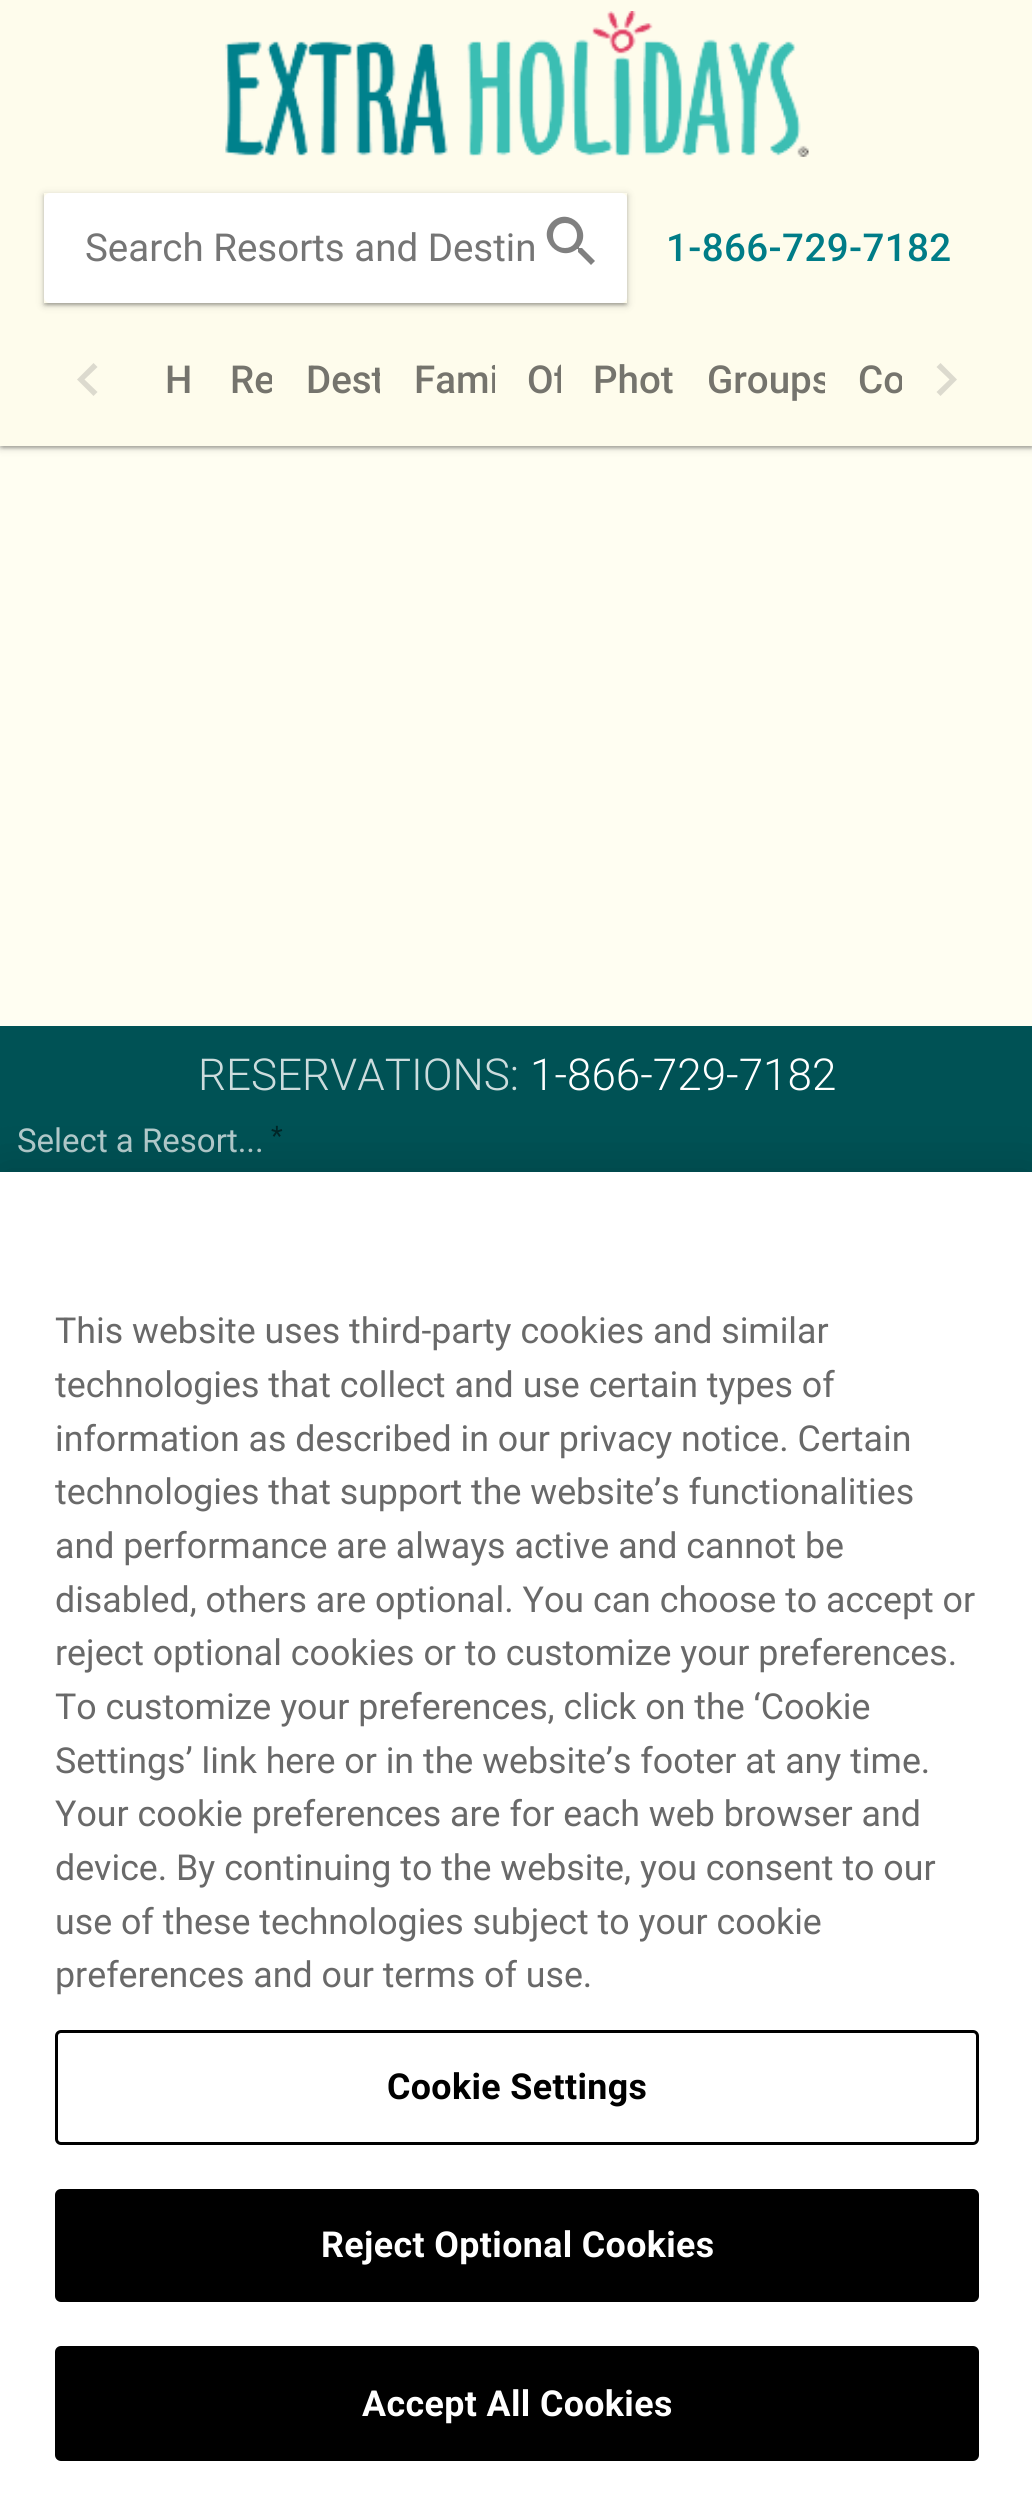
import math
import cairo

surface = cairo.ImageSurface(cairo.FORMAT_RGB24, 1032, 2505)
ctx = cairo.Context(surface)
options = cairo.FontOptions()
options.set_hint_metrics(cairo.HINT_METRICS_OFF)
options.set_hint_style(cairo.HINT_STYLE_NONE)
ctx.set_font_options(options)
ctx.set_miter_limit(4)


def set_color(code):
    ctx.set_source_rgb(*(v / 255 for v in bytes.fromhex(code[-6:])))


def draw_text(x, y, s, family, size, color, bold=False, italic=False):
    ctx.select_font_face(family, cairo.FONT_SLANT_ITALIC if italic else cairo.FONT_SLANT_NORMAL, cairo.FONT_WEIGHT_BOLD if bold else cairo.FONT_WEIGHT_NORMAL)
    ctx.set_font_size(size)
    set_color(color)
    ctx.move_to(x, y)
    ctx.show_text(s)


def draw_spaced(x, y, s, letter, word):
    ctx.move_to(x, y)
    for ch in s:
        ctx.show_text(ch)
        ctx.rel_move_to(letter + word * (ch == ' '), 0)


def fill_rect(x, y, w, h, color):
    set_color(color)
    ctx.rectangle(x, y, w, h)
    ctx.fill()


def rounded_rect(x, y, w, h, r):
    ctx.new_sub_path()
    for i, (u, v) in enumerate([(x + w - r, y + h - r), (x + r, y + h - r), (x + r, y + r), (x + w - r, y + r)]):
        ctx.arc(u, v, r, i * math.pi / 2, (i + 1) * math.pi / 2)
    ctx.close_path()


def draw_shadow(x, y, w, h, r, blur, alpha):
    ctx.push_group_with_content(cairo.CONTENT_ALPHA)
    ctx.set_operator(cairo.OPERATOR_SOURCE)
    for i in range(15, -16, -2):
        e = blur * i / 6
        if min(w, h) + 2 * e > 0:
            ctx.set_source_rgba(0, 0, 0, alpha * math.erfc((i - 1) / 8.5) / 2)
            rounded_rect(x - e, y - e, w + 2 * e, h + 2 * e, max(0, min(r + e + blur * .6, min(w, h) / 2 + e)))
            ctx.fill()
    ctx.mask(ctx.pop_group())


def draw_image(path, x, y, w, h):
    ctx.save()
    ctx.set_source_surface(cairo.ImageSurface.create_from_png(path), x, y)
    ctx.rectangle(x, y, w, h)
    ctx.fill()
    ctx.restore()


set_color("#fffef2")
ctx.paint()
set_color("#000000")
draw_shadow(3, 8, 1028, 440, 0, 1.5, 0.12)
draw_shadow(0, 3, 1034, 445, 0, 1.5, 0.14)
draw_shadow(0, 3, 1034, 445, 0, 4, 0.2)
fill_rect(0, 0, 1032, 446, "#fefcec")
draw_image("assets/img1.png", 225, 11, 584, 146)
set_color("#ffffff")
rounded_rect(44, 193, 583, 110, 6)
ctx.fill()
ctx.save()
ctx.set_fill_rule(cairo.FILL_RULE_EVEN_ODD)
ctx.new_path()
ctx.move_to(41, 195)
ctx.line_to(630, 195)
ctx.line_to(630, 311)
ctx.line_to(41, 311)
ctx.close_path()
ctx.move_to(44, 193)
ctx.line_to(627, 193)
ctx.line_to(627, 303)
ctx.line_to(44, 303)
ctx.close_path()
ctx.clip()
set_color("#000000")
draw_shadow(47, 201, 577, 104, 0, 1.5, 0.12)
ctx.restore()
ctx.save()
ctx.set_fill_rule(cairo.FILL_RULE_EVEN_ODD)
ctx.new_path()
ctx.move_to(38, 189)
ctx.line_to(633, 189)
ctx.line_to(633, 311)
ctx.line_to(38, 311)
ctx.close_path()
ctx.move_to(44, 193)
ctx.line_to(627, 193)
ctx.line_to(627, 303)
ctx.line_to(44, 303)
ctx.close_path()
ctx.clip()
set_color("#000000")
draw_shadow(44, 195, 583, 110, 0, 1.5, 0.14)
ctx.restore()
ctx.save()
ctx.set_fill_rule(cairo.FILL_RULE_EVEN_ODD)
ctx.new_path()
ctx.move_to(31, 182)
ctx.line_to(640, 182)
ctx.line_to(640, 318)
ctx.line_to(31, 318)
ctx.close_path()
ctx.move_to(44, 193)
ctx.line_to(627, 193)
ctx.line_to(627, 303)
ctx.line_to(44, 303)
ctx.close_path()
ctx.clip()
set_color("#000000")
draw_shadow(44, 195, 583, 110, 0, 4, 0.2)
ctx.restore()
draw_text(85, 261, "Search Resorts and Destin", "Roboto", 38.5, "#757575")
set_color("#808080")
ctx.new_path()
ctx.move_to(582, 248)
ctx.line_to(579, 248)
ctx.line_to(579, 247)
ctx.curve_to(593, 230, 569, 206, 552, 222)
ctx.curve_to(536, 239, 560, 263, 577, 249)
ctx.line_to(578, 249)
ctx.line_to(578, 252)
ctx.line_to(591, 265)
ctx.line_to(595, 261)
ctx.close_path()
ctx.move_to(565, 248)
ctx.curve_to(549, 248, 549, 223, 565, 223)
ctx.curve_to(581, 223, 581, 248, 565, 248)
ctx.close_path()
ctx.fill()
ctx.select_font_face("Roboto Medium")
set_color("#007c87")
draw_spaced(666, 261, "1-866-729-7182", 0.4, 0)
set_color("#dcdace")
ctx.new_path()
ctx.move_to(97.5, 367)
ctx.line_to(93.5, 363)
ctx.line_to(77, 379.5)
ctx.line_to(93.5, 396)
ctx.line_to(97.5, 392)
ctx.line_to(84.5, 379.5)
ctx.close_path()
ctx.fill()
draw_text(165, 393, "H", "Roboto Medium", 38.5, "#75746d")
ctx.save()
ctx.rectangle(198, 314, 74, 132)
ctx.clip()
draw_text(230, 393, "Re", "Roboto Medium", 38.5, "#75746d")
ctx.restore()
ctx.save()
ctx.rectangle(272, 314, 108, 132)
ctx.clip()
draw_text(306, 393, "Dest", "Roboto Medium", 38.5, "#75746d")
ctx.restore()
ctx.save()
ctx.rectangle(380, 314, 115, 132)
ctx.clip()
draw_text(414, 393, "Fami", "Roboto Medium", 38.5, "#75746d")
ctx.restore()
ctx.save()
ctx.rectangle(495, 314, 66, 132)
ctx.clip()
draw_text(527, 393, "Of", "Roboto Medium", 38.5, "#75746d")
ctx.restore()
draw_text(593, 393, "Phot", "Roboto Medium", 38.5, "#75746d")
ctx.save()
ctx.rectangle(674, 314, 151, 132)
ctx.clip()
draw_text(707, 393, "Groups", "Roboto Medium", 38.5, "#75746d")
ctx.restore()
ctx.save()
ctx.rectangle(825, 314, 77, 132)
ctx.clip()
draw_text(858, 393, "Co", "Roboto Medium", 38.5, "#75746d")
ctx.restore()
set_color("#dcdace")
ctx.new_path()
ctx.move_to(936.5, 392)
ctx.line_to(940.5, 396)
ctx.line_to(957, 379.5)
ctx.line_to(940.5, 363)
ctx.line_to(936.5, 367)
ctx.line_to(949.5, 379.5)
ctx.close_path()
ctx.fill()
fill_rect(0, 1026, 1032, 146, "#005255")
draw_text(198, 1090, "RESERVATIONS:", "Roboto Light", 44, "#ccdcdd")
draw_text(530, 1090, "1-866-729-7182", "Roboto Light", 44, "#ffffff")
draw_text(17, 1152, "Select a Resort...", "Roboto", 33, "#b3cbcc")
draw_text(271, 1145, "*", "Roboto", 27, "#002627")
set_color("#000000")
draw_shadow(0, 1172, 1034, 1333, 0, 25, 0.2)
fill_rect(0, 1172, 1032, 1333, "#ffffff")
draw_text(55, 1343, "This website uses third-party cookies and similar", "Roboto", 35.75, "#696969")
draw_text(55, 1397, "technologies that collect and use certain types of", "Roboto", 35.75, "#696969")
draw_text(55, 1451, "information as described in our privacy notice. Certain", "Roboto", 35.75, "#696969")
draw_text(55, 1504, "technologies that support the website’s functionalities", "Roboto", 35.75, "#696969")
draw_text(55, 1558, "and performance are always active and cannot be", "Roboto", 35.75, "#696969")
draw_text(55, 1612, "disabled, others are optional. You can choose to accept or", "Roboto", 35.75, "#696969")
draw_text(55, 1665, "reject optional cookies or to customize your preferences.", "Roboto", 35.75, "#696969")
draw_text(55, 1719, "To customize your preferences, click on the ‘Cookie", "Roboto", 35.75, "#696969")
draw_text(55, 1773, "Settings’ link here or in the website’s footer at any time.", "Roboto", 35.75, "#696969")
draw_text(55, 1826, "Your cookie preferences are for each web browser and", "Roboto", 35.75, "#696969")
draw_text(55, 1880, "device. By continuing to the website, you consent to our", "Roboto", 35.75, "#696969")
draw_text(55, 1934, "use of these technologies subject to your cookie", "Roboto", 35.75, "#696969")
draw_text(55, 1987, "preferences and our terms of use.", "Roboto", 35.75, "#696969")
rounded_rect(56.5, 2031.5, 921, 112, 4.5)
set_color("#000000")
ctx.set_line_width(3)
ctx.stroke()
ctx.select_font_face("Roboto", cairo.FONT_SLANT_NORMAL, cairo.FONT_WEIGHT_BOLD)
draw_spaced(387, 2099, "Cookie Settings", 0.4, 0)
rounded_rect(56.5, 2190.5, 921, 110, 4.5)
ctx.fill_preserve()
ctx.stroke()
set_color("#ffffff")
draw_spaced(321, 2257, "Reject Optional Cookies", 0.4, 0)
set_color("#000000")
rounded_rect(56.5, 2347.5, 921, 112, 4.5)
ctx.fill_preserve()
ctx.stroke()
set_color("#ffffff")
draw_spaced(362, 2416, "Accept All Cookies", 0.4, 0)
surface.write_to_png("output.png")
